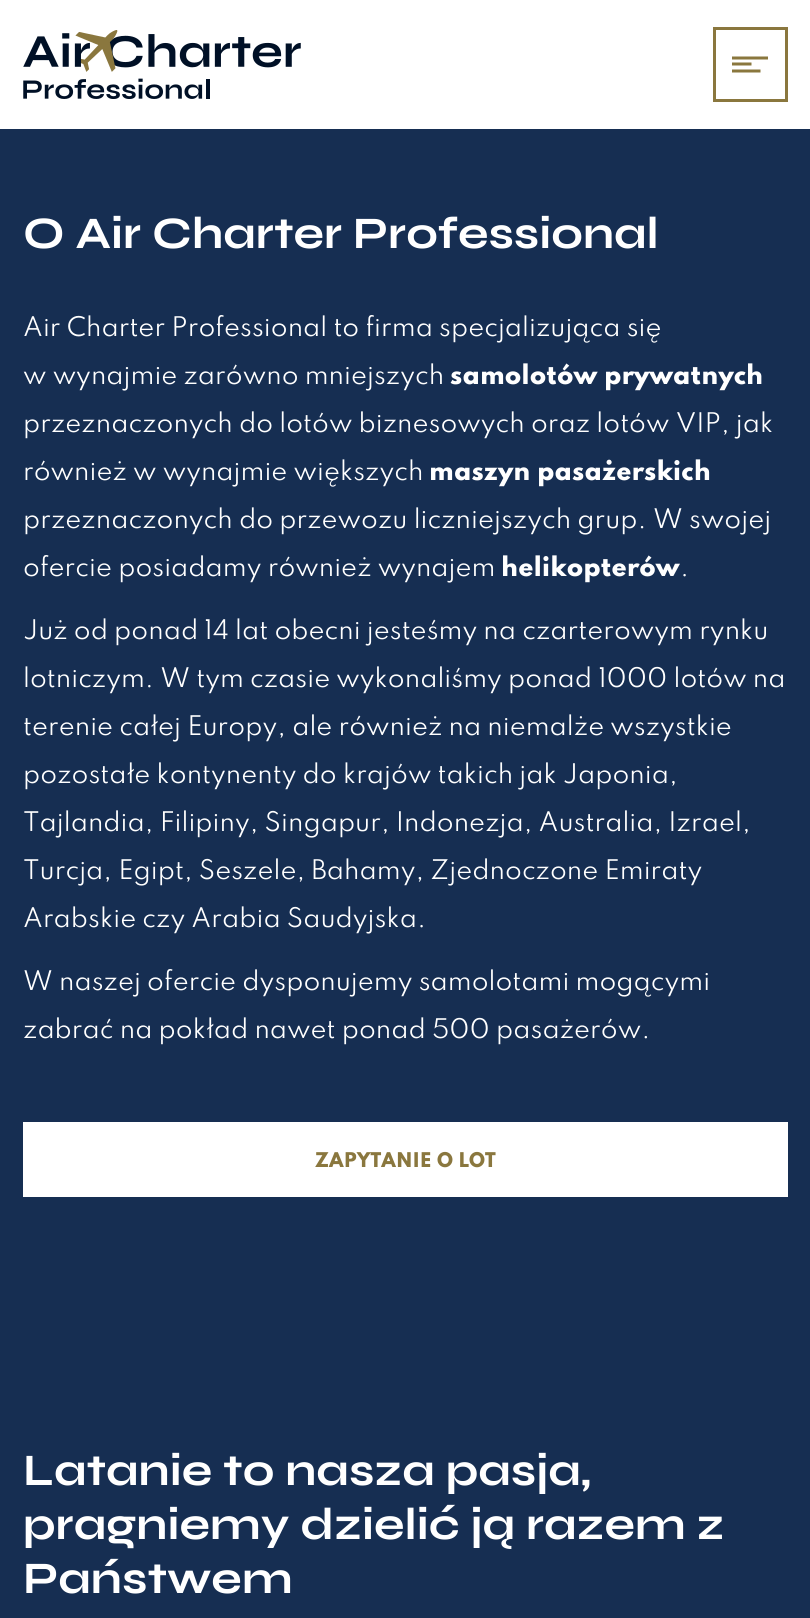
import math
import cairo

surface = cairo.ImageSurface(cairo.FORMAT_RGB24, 810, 1618)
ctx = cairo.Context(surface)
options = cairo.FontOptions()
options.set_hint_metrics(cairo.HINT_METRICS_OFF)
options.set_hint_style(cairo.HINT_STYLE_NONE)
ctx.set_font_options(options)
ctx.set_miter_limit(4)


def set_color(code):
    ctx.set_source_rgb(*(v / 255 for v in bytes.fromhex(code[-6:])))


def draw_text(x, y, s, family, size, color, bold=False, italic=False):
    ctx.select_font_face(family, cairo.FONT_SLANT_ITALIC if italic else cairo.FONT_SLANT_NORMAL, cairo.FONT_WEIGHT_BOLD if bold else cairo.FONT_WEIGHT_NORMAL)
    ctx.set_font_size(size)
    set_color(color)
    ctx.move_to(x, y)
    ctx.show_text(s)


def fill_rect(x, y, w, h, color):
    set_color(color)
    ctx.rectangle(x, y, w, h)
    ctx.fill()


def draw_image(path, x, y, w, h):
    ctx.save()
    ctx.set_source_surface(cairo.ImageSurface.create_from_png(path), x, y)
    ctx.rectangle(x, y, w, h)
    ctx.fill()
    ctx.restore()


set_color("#162e52")
ctx.paint()
fill_rect(0, 0, 810, 129, "#ffffff")
draw_image("assets/img1.png", 23, 30, 278, 69)
ctx.new_path()
ctx.move_to(732, 58)
ctx.line_to(768, 58)
ctx.move_to(732, 64)
ctx.line_to(751.5, 64)
ctx.move_to(732, 71)
ctx.line_to(760.5, 71)
set_color("#8a773e")
ctx.set_line_width(3)
ctx.stroke()
ctx.rectangle(714.5, 28.5, 72, 72)
ctx.stroke()
draw_text(23, 248, "O Air Charter Professional", "Syne", 45, "#ffffff", bold=True)
draw_text(23, 336, "Air Charter Professional to firma specjalizująca się", "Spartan", 24, "#ffffff")
draw_text(23, 384, "w wynajmie zarówno mniejszych", "Spartan", 24, "#ffffff")
draw_text(450, 384, "samolotów prywatnych", "Spartan ExtraBold", 24, "#ffffff")
draw_text(23, 432, "przeznaczonych do lotów biznesowych oraz lotów VIP, jak", "Spartan", 24, "#ffffff")
draw_text(23, 480, "również w wynajmie większych", "Spartan", 24, "#ffffff")
draw_text(429, 480, "maszyn pasażerskich", "Spartan ExtraBold", 24, "#ffffff")
draw_text(23, 528, "przeznaczonych do przewozu liczniejszych grup. W swojej", "Spartan", 24, "#ffffff")
draw_text(23, 576, "ofercie posiadamy również wynajem", "Spartan", 24, "#ffffff")
draw_text(501, 576, "helikopterów", "Spartan ExtraBold", 24, "#ffffff")
draw_text(680, 576, ".", "Spartan", 24, "#ffffff")
draw_text(23, 639, "Już od ponad 14 lat obecni jesteśmy na czarterowym rynku", "Spartan", 24, "#ffffff")
draw_text(23, 687, "lotniczym. W tym czasie wykonaliśmy ponad 1000 lotów na", "Spartan", 24, "#ffffff")
draw_text(23, 735, "terenie całej Europy, ale również na niemalże wszystkie", "Spartan", 24, "#ffffff")
draw_text(23, 783, "pozostałe kontynenty do krajów takich jak Japonia,", "Spartan", 24, "#ffffff")
draw_text(23, 831, "Tajlandia, Filipiny, Singapur, Indonezja, Australia, Izrael,", "Spartan", 24, "#ffffff")
draw_text(23, 879, "Turcja, Egipt, Seszele, Bahamy, Zjednoczone Emiraty", "Spartan", 24, "#ffffff")
draw_text(23, 927, "Arabskie czy Arabia Saudyjska.", "Spartan", 24, "#ffffff")
draw_text(23, 990, "W naszej ofercie dysponujemy samolotami mogącymi", "Spartan", 24, "#ffffff")
draw_text(23, 1038, "zabrać na pokład nawet ponad 500 pasażerów.", "Spartan", 24, "#ffffff")
fill_rect(23, 1122, 765, 75, "#ffffff")
draw_text(315, 1167, "ZAPYTANIE O LOT", "Spartan ExtraBold", 18, "#8a773e")
draw_text(23, 1485, "Latanie to nasza pasja,", "Syne", 45, "#ffffff", bold=True)
draw_text(23, 1539, "pragniemy dzielić ją razem z", "Syne", 45, "#ffffff", bold=True)
draw_text(23, 1593, "Państwem", "Syne", 45, "#ffffff", bold=True)
surface.write_to_png("output.png")
